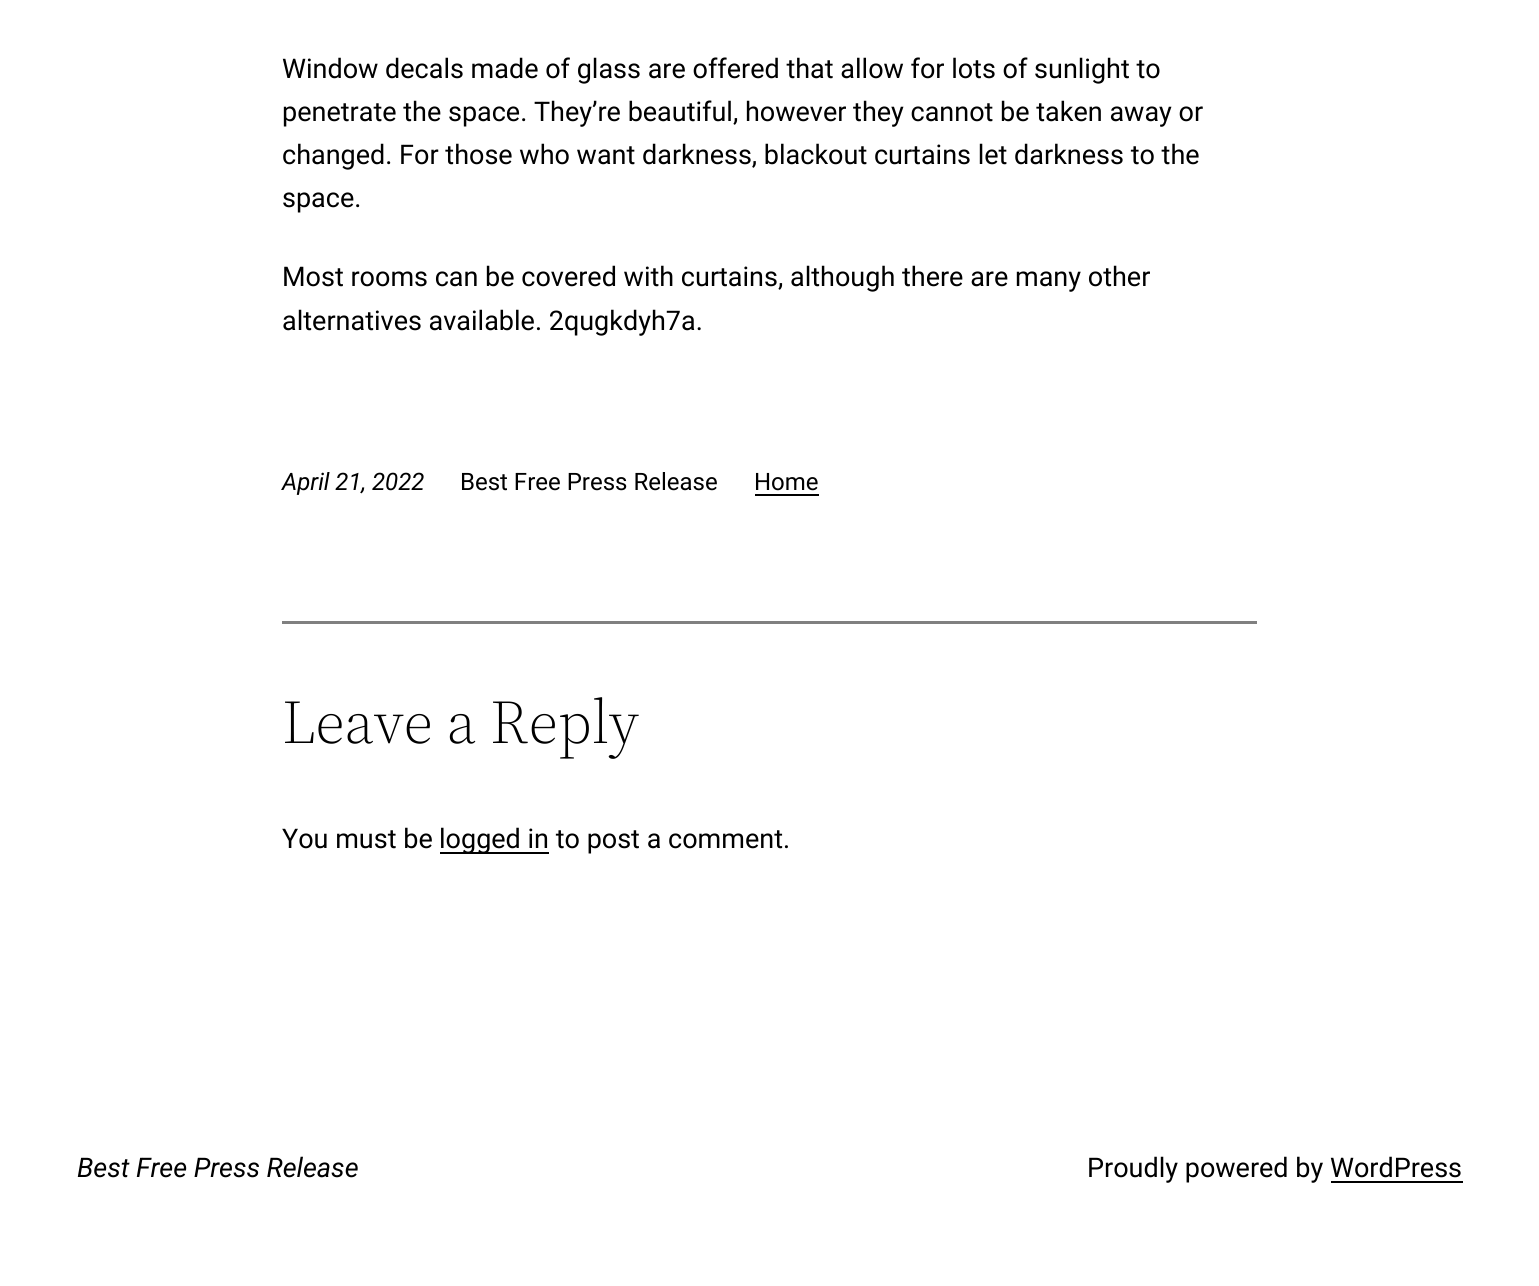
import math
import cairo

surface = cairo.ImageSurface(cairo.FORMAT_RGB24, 1539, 1286)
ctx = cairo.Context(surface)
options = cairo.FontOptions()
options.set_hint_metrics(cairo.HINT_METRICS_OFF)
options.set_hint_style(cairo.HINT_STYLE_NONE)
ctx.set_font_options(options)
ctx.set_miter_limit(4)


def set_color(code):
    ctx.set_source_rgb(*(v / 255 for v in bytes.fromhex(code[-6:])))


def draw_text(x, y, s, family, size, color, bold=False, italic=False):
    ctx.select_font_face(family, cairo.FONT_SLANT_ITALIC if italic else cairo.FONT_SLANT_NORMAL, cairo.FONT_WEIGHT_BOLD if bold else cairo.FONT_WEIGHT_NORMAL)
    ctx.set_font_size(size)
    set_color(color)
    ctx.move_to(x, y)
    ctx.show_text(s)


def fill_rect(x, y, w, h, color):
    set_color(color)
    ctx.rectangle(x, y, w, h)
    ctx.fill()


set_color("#ffffff")
ctx.paint()
draw_text(282, 78, "Window decals made of glass are offered that allow for lots of sunlight to", "Roboto", 27, "#000000")
draw_text(282, 121, "penetrate the space. They’re beautiful, however they cannot be taken away or", "Roboto", 27, "#000000")
draw_text(282, 164, "changed. For those who want darkness, blackout curtains let darkness to the", "Roboto", 27, "#000000")
draw_text(282, 207, "space.", "Roboto", 27, "#000000")
draw_text(282, 286, "Most rooms can be covered with curtains, although there are many other", "Roboto", 27, "#000000")
draw_text(282, 330, "alternatives available. 2qugkdyh7a.", "Roboto", 27, "#000000")
draw_text(282, 490, "April 21, 2022", "Roboto", 24, "#000000", italic=True)
draw_text(460, 490, "Best Free Press Release", "Roboto", 24, "#000000")
draw_text(754, 490, "Home", "Roboto", 24, "#000000")
fill_rect(755, 494, 64, 2, "#000000")
fill_rect(282, 621, 975, 3, "#808080")
draw_text(282, 743, "Leave a Reply", "Source Serif 4 Light", 61.5, "#000000")
draw_text(282, 848, "You must be", "Roboto", 27, "#000000")
fill_rect(440, 852, 109, 2, "#000000")
draw_text(439, 848, "logged in to post a comment.", "Roboto", 27, "#000000")
draw_text(77, 1177, "Best Free Press Release", "Roboto", 27, "#000000", italic=True)
draw_text(1087, 1177, "Proudly powered by WordPress", "Roboto", 27, "#000000")
fill_rect(1331, 1181, 132, 2, "#000000")
surface.write_to_png("output.png")
